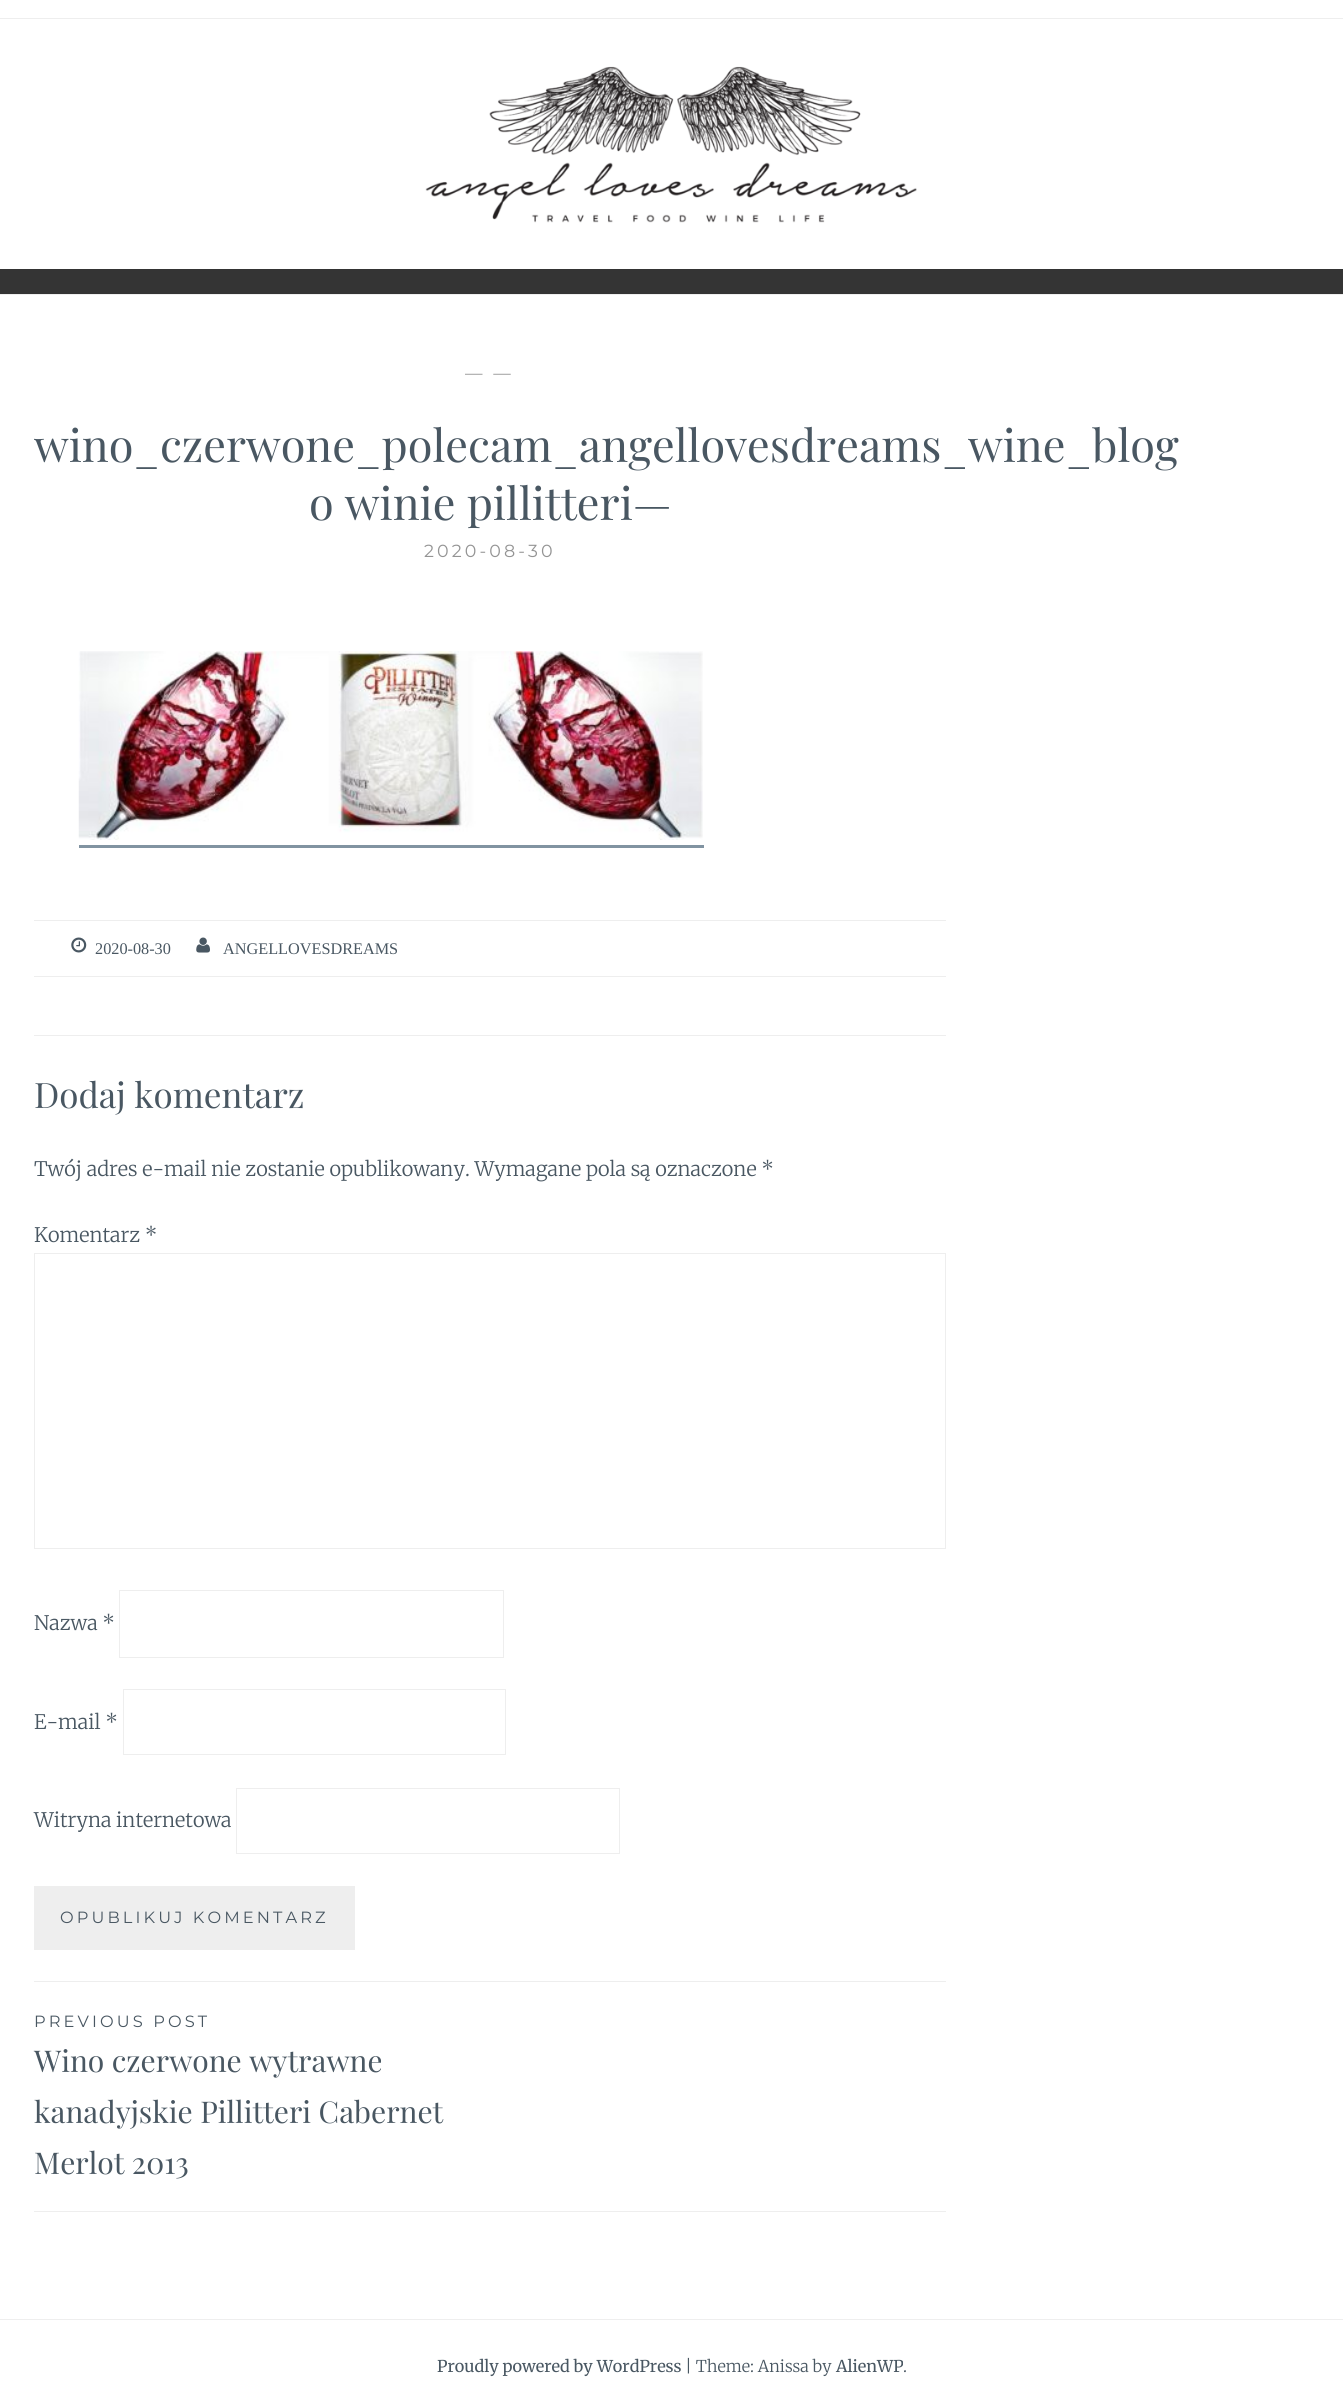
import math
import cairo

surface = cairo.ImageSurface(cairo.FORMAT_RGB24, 1343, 2395)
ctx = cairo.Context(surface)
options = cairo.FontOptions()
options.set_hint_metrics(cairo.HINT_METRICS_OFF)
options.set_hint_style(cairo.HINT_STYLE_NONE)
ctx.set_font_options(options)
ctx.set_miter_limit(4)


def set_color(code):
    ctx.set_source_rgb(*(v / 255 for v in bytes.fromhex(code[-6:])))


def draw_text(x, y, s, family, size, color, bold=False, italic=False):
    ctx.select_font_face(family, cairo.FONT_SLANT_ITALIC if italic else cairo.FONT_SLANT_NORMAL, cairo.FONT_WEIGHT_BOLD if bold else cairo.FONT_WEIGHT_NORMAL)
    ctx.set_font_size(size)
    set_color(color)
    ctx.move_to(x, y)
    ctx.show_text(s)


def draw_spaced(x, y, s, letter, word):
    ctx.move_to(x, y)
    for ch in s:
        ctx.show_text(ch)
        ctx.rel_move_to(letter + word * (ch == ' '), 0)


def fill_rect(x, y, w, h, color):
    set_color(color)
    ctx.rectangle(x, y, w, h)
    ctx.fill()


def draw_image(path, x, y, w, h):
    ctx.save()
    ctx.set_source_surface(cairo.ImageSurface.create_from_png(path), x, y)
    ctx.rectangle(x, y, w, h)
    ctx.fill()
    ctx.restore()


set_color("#ffffff")
ctx.paint()
fill_rect(0, 18, 1343, 1, "#eeeeee")
fill_rect(0, 269, 1343, 25, "#343434")
draw_image("assets/img1.png", 425, 66, 492, 157)
fill_rect(0, 294, 1343, 1, "#eeeeee")
ctx.select_font_face("Montserrat")
ctx.set_font_size(17.5)
set_color("#949494")
draw_spaced(465, 379, "— —", 3.1, 0)
draw_text(34, 462, "wino_czerwone_polecam_angellovesdreams_wine_blog", "Playfair Display", 45, "#495762")
draw_text(309, 520, "o winie pillitteri—", "Playfair Display", 45, "#495762")
ctx.select_font_face("Montserrat")
ctx.set_font_size(17.5)
set_color("#949494")
draw_spaced(424, 557, "2020-08-30", 3.1, 0)
draw_image("assets/img2.png", 78, 651, 625, 189)
fill_rect(79, 845, 625, 3, "#8193a1")
fill_rect(34, 920, 912, 1, "#eeeeee")
fill_rect(34, 976, 912, 1, "#eeeeee")
draw_image("assets/img3.png", 71, 937, 16, 16)
draw_text(95, 954, "2020-08-30", "Liberation Serif", 16.25, "#495762")
draw_image("assets/img4.png", 196, 937, 14, 16)
draw_text(223, 954, "ANGELLOVESDREAMS", "Liberation Serif", 16.25, "#495762")
fill_rect(34, 1035, 912, 1, "#eeeeee")
draw_text(34, 1108, "Dodaj komentarz", "Playfair Display", 35, "#495762")
draw_text(34, 1176, "Twój adres e-mail nie zostanie opublikowany. Wymagane pola są oznaczone *", "Merriweather Light", 20, "#495762")
draw_text(34, 1242, "Komentarz *", "Merriweather Light", 20, "#495762")
ctx.rectangle(34.5, 1253.5, 911, 295)
set_color("#eeeeee")
ctx.set_line_width(1)
ctx.stroke()
draw_text(34, 1630, "Nazwa *", "Merriweather Light", 20, "#495762")
ctx.rectangle(119.5, 1590.5, 384, 67)
set_color("#eeeeee")
ctx.stroke()
draw_text(34, 1729, "E-mail *", "Merriweather Light", 20, "#495762")
ctx.rectangle(123.5, 1689.5, 382, 65)
set_color("#eeeeee")
ctx.stroke()
draw_text(34, 1827, "Witryna internetowa", "Merriweather Light", 20, "#495762")
ctx.rectangle(236.5, 1788.5, 383, 65)
set_color("#eeeeee")
ctx.stroke()
fill_rect(34, 1886, 321, 64, "#eeeeee")
ctx.select_font_face("Montserrat")
ctx.set_font_size(16.25)
set_color("#495762")
draw_spaced(60, 1923, "OPUBLIKUJ KOMENTARZ", 3.1, 0)
fill_rect(34, 1981, 912, 1, "#eeeeee")
fill_rect(34, 2211, 912, 1, "#eeeeee")
set_color("#495762")
draw_spaced(34, 2027, "PREVIOUS POST", 3.1, 0)
draw_text(34, 2072, "Wino czerwone wytrawne", "Playfair Display", 30, "#495762")
draw_text(34, 2123, "kanadyjskie Pillitteri Cabernet", "Playfair Display", 30, "#495762")
draw_text(34, 2174, "Merlot 2013", "Playfair Display", 30, "#495762")
fill_rect(0, 2319, 1343, 1, "#eeeeee")
draw_text(437, 2372, "Proudly powered by WordPress", "Merriweather", 16.25, "#495762")
draw_text(685, 2372, "| Theme: Anissa by", "Merriweather Light", 16.25, "#495762")
draw_text(836, 2372, "AlienWP", "Merriweather", 16.25, "#495762")
draw_text(903, 2372, ".", "Merriweather Light", 16.25, "#495762")
surface.write_to_png("output.png")
